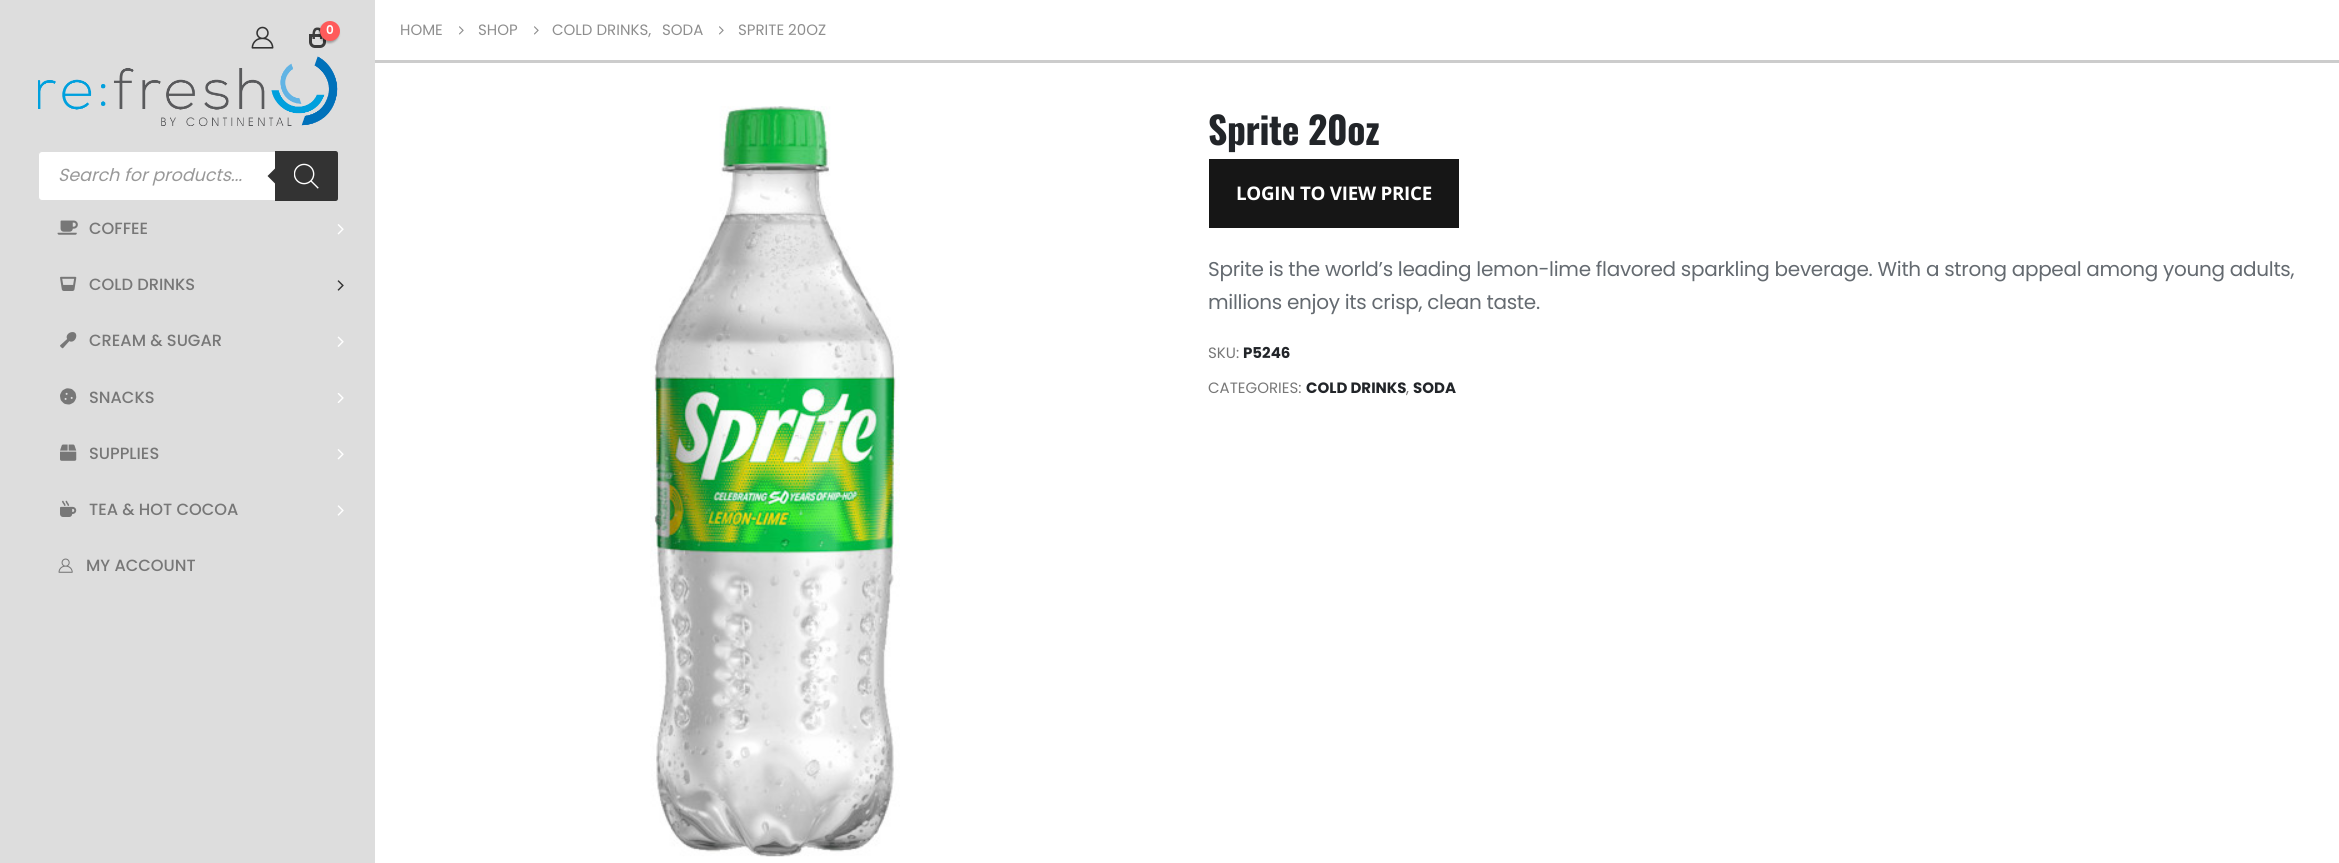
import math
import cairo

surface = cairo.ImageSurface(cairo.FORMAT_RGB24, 2339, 863)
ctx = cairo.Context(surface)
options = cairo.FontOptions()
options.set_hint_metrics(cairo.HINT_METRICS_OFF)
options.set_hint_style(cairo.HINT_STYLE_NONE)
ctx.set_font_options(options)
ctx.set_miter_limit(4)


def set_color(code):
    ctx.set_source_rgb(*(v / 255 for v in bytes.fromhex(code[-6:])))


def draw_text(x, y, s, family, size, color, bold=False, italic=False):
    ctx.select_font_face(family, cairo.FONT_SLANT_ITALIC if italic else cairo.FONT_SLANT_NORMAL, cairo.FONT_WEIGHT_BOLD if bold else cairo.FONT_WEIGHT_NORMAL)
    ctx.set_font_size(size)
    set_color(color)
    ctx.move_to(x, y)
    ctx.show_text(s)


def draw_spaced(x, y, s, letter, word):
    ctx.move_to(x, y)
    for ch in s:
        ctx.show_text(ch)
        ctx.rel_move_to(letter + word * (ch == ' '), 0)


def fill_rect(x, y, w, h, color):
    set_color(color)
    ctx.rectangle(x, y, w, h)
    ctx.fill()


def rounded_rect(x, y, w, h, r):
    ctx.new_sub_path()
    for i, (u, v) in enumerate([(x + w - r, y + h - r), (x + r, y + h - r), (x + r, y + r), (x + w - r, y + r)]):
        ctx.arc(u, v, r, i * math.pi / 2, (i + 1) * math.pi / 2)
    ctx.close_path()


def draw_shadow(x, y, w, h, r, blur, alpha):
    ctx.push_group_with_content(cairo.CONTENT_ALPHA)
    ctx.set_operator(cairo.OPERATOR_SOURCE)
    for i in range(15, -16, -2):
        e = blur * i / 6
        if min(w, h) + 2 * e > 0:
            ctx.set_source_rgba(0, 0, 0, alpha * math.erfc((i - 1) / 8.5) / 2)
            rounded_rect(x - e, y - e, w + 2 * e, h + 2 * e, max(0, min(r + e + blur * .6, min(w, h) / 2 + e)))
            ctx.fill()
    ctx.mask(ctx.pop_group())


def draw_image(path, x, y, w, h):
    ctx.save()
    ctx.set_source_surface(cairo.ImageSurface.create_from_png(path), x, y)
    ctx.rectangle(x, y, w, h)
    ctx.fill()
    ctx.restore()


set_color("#ffffff")
ctx.paint()
fill_rect(0, 0, 375, 863, "#dddddd")
draw_image("assets/img1.png", 251, 26, 23, 23)
ctx.new_path()
ctx.move_to(310.5, 35.5)
ctx.line_to(324.5, 35.5)
ctx.line_to(324.5, 42)
ctx.curve_to(324.5, 44.5, 322.5, 46.5, 320, 46.5)
ctx.line_to(315, 46.5)
ctx.curve_to(312.5, 46.5, 310.5, 44.5, 310.5, 42)
ctx.close_path()
set_color("#3c3c3c")
ctx.set_line_width(3)
ctx.stroke()
ctx.set_fill_rule(cairo.FILL_RULE_EVEN_ODD)
ctx.new_path()
ctx.move_to(317.5, 27.5)
ctx.curve_to(323.5, 27.5, 322.5, 34.5, 322.5, 39)
ctx.line_to(312.5, 39)
ctx.curve_to(312.5, 34.5, 311.5, 27.5, 317.5, 27.5)
ctx.close_path()
ctx.move_to(317.5, 30)
ctx.curve_to(321, 30, 320, 36.5, 320, 39)
ctx.line_to(315, 39)
ctx.curve_to(315, 36.5, 314, 30, 317.5, 30)
ctx.close_path()
ctx.fill()
set_color("#000000")
draw_shadow(319, 23, 20, 20, 10, 1, 0.3)
set_color("#ff5b5b")
ctx.arc(330, 31, 10, 0, 2 * math.pi)
ctx.fill()
draw_text(326, 34, "0", "Poppins SemiBold", 12, "#ffffff")
draw_image("assets/img2.png", 38, 56, 300, 70)
rounded_rect(38.5, 151.5, 299, 49, 3.5)
ctx.fill_preserve()
set_color("#dddddd")
ctx.set_line_width(1)
ctx.stroke()
draw_text(58, 181, "Search for products...", "Poppins", 17.5, "#999999", italic=True)
set_color("#333333")
ctx.new_path()
ctx.move_to(275, 151)
ctx.line_to(335.5, 151)
ctx.curve_to(337, 151, 338, 152, 338, 153.5)
ctx.line_to(338, 198.5)
ctx.curve_to(338, 200, 337, 201, 335.5, 201)
ctx.line_to(275, 201)
ctx.close_path()
ctx.fill()
ctx.set_fill_rule(cairo.FILL_RULE_WINDING)
ctx.new_path()
ctx.move_to(277.5, 166)
ctx.line_to(277.5, 186)
ctx.line_to(267.5, 176)
ctx.close_path()
ctx.fill()
draw_image("assets/img3.png", 294, 163, 25, 26)
draw_image("assets/img4.png", 57, 220, 21, 15)
draw_text(89, 234, "COFFEE", "Poppins Medium", 16.25, "#777777")
draw_image("assets/img5.png", 337, 224, 7, 11)
draw_image("assets/img6.png", 60, 276, 17, 15)
draw_text(89, 290, "COLD DRINKS", "Poppins Medium", 16.25, "#777777")
draw_image("assets/img7.png", 337, 280, 7, 11)
draw_image("assets/img8.png", 60, 332, 17, 17)
draw_text(89, 346, "CREAM & SUGAR", "Poppins Medium", 16.25, "#777777")
draw_image("assets/img9.png", 337, 336, 7, 11)
draw_image("assets/img10.png", 60, 388, 17, 17)
draw_text(89, 403, "SNACKS", "Poppins Medium", 16.25, "#777777")
draw_image("assets/img11.png", 337, 393, 7, 10)
draw_image("assets/img12.png", 60, 444, 17, 17)
draw_text(89, 459, "SUPPLIES", "Poppins Medium", 16.25, "#777777")
draw_image("assets/img5.png", 337, 449, 7, 11)
draw_image("assets/img13.png", 60, 500, 17, 17)
draw_text(89, 515, "TEA & HOT COCOA", "Poppins Medium", 16.25, "#777777")
draw_image("assets/img14.png", 337, 505, 7, 11)
draw_image("assets/img15.png", 58, 558, 15, 15)
draw_text(86, 571, "MY ACCOUNT", "Poppins Medium", 16.25, "#777777")
fill_rect(375, 60, 1964, 3, "#cccccc")
draw_text(400, 35, "HOME", "Poppins", 15, "#8e8e8e")
draw_image("assets/img16.png", 459, 26, 5, 9)
draw_text(478, 35, "SHOP", "Poppins", 15, "#8e8e8e")
draw_image("assets/img16.png", 534, 26, 5, 9)
draw_text(552, 35, "COLD DRINKS,", "Poppins", 15, "#8e8e8e")
draw_text(662, 35, "SODA", "Poppins", 15, "#8e8e8e")
draw_image("assets/img16.png", 719, 26, 5, 9)
draw_text(738, 35, "SPRITE 20OZ", "Poppins", 15, "#8e8e8e")
draw_image("assets/img17.png", 650, 106, 250, 751)
ctx.select_font_face("Oswald", cairo.FONT_SLANT_NORMAL, cairo.FONT_WEIGHT_BOLD)
ctx.set_font_size(37.5)
set_color("#222529")
draw_spaced(1208, 145, "Sprite 20oz", -0.4, 0)
fill_rect(1209, 159, 250, 69, "#161616")
ctx.select_font_face("Open Sans", cairo.FONT_SLANT_NORMAL, cairo.FONT_WEIGHT_BOLD)
ctx.set_font_size(18.75)
set_color("#ffffff")
draw_spaced(1236, 200, "LOGIN TO VIEW PRICE", -0.25, 0)
ctx.select_font_face("Poppins")
ctx.set_font_size(20)
set_color("#646a70")
draw_spaced(1208, 276, "Sprite is the world’s leading lemon-lime flavored sparkling beverage. With a strong appeal among young adults,", -0.3, 0)
draw_spaced(1208, 309, "millions enjoy its crisp, clean taste.", -0.3, 0)
draw_text(1208, 358, "SKU:", "Poppins", 15, "#777777")
draw_text(1243, 358, "P5246", "Poppins", 15, "#222529", bold=True)
draw_text(1208, 393, "CATEGORIES:", "Poppins", 15, "#777777")
draw_text(1306, 393, "COLD DRINKS", "Poppins", 15, "#222529", bold=True)
draw_text(1406, 393, ",", "Poppins", 15, "#777777")
draw_text(1413, 393, "SODA", "Poppins", 15, "#222529", bold=True)
surface.write_to_png("output.png")
